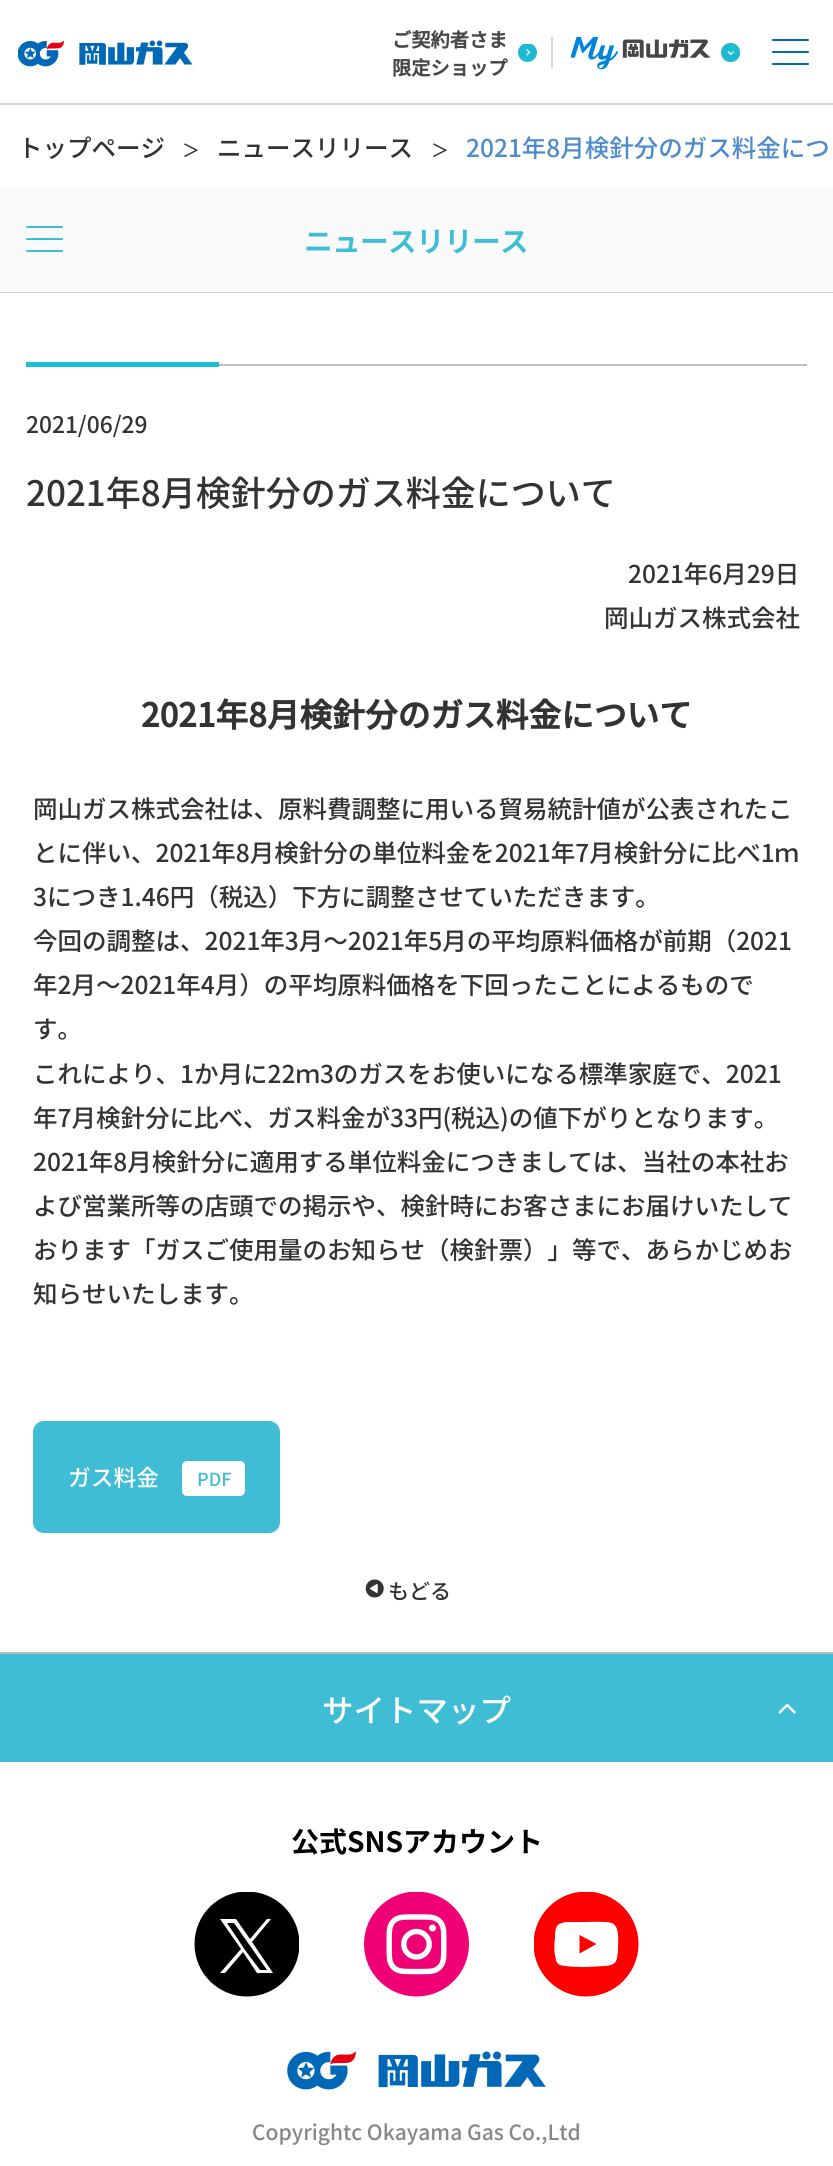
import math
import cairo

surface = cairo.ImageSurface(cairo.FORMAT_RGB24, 833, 2166)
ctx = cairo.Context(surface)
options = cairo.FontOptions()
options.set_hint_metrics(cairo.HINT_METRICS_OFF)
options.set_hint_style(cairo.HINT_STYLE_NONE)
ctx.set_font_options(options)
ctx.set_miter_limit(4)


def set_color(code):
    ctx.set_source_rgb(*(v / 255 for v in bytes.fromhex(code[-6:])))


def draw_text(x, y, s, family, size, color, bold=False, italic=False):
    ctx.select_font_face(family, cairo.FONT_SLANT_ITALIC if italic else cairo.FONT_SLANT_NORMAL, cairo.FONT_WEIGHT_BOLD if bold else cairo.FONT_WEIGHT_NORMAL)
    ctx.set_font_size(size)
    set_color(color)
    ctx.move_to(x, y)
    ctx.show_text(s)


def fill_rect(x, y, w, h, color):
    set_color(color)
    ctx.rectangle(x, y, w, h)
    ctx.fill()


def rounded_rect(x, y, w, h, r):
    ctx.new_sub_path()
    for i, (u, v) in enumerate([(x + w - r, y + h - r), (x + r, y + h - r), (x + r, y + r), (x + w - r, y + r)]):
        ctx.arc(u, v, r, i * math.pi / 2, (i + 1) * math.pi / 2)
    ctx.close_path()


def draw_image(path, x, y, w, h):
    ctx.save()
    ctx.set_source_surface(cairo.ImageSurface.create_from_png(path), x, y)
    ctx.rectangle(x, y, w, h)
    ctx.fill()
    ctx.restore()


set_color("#ffffff")
ctx.paint()
draw_image("assets/img1.png", 18, 40, 175, 27)
draw_text(392, 47, "ご契約者さま", "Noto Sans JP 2", 19.25, "#494949", bold=True)
draw_text(392, 75, "限定ショップ", "Noto Sans JP 2", 19.25, "#494949", bold=True)
draw_image("assets/img2.png", 518, 44, 19, 18)
fill_rect(551, 37, 2, 31, "#d8d8d8")
draw_image("assets/img3.png", 571, 37, 140, 33)
draw_image("assets/img4.png", 721, 43, 19, 19)
set_color("#0168b3")
rounded_rect(772, 39, 37, 2, 1)
ctx.fill()
rounded_rect(772, 51, 37, 2, 1)
ctx.fill()
rounded_rect(772, 63, 37, 2, 1)
ctx.fill()
fill_rect(0, 103, 833, 2, "#d8d8d8")
draw_text(18, 157, "トップページ", "Noto Sans JP Thin", 24.5, "#333333")
draw_text(182, 157, "＞", "Noto Sans JP Thin", 18, "#333333")
draw_text(217, 157, "ニュースリリース", "Noto Sans JP Thin", 24.5, "#333333")
draw_text(431, 157, "＞", "Noto Sans JP Thin", 18, "#333333")
draw_text(466, 157, "2021年8月検針分のガス料金につ", "Noto Sans JP Thin", 24.5, "#4d8bce")
fill_rect(0, 187, 833, 105, "#fafafa")
set_color("#3fbdd5")
rounded_rect(26, 226, 37, 2, 1)
ctx.fill()
rounded_rect(26, 238, 37, 2, 1)
ctx.fill()
rounded_rect(26, 250, 37, 2, 1)
ctx.fill()
draw_text(304, 252, "ニュースリリース", "Noto Sans JP 2", 28, "#3fbdd5", bold=True)
fill_rect(0, 292, 833, 1, "#d8d8d8")
fill_rect(26, 362, 193, 5, "#1cbed7")
fill_rect(219, 364, 588, 2, "#bfbfbf")
draw_text(26, 433, "2021/06/29", "Noto Sans JP Thin", 22.75, "#333333")
draw_text(26, 506, "2021年8月検針分のガス料金について", "Noto Sans JP Thin", 35, "#333333")
draw_text(628, 583, "2021年6月29日", "Noto Sans JP Thin", 24.5, "#333333")
draw_text(604, 627, "岡山ガス株式会社", "Noto Sans JP Thin", 24.5, "#333333")
draw_text(141, 727, "2021年8月検針分のガス料金について", "Noto Sans JP 2", 32.7, "#333333", bold=True)
draw_text(33, 818, "岡山ガス株式会社は、原料費調整に用いる貿易統計値が公表されたこ", "Noto Sans JP Thin", 24.5, "#333333")
draw_text(33, 862, "とに伴い、2021年8月検針分の単位料金を2021年7月検針分に比べ1ｍ", "Noto Sans JP Thin", 24.5, "#333333")
draw_text(33, 906, "3につき1.46円（税込）下方に調整させていただきます。", "Noto Sans JP Thin", 24.5, "#333333")
draw_text(33, 950, "今回の調整は、2021年3月～2021年5月の平均原料価格が前期（2021", "Noto Sans JP Thin", 24.5, "#333333")
draw_text(33, 994, "年2月～2021年4月）の平均原料価格を下回ったことによるもので", "Noto Sans JP Thin", 24.5, "#333333")
draw_text(33, 1038, "す。", "Noto Sans JP Thin", 24.5, "#333333")
draw_text(33, 1083, "これにより、1か月に22ｍ3のガスをお使いになる標準家庭で、2021", "Noto Sans JP Thin", 24.5, "#333333")
draw_text(33, 1127, "年7月検針分に比べ、ガス料金が33円(税込)の値下がりとなります。", "Noto Sans JP Thin", 24.5, "#333333")
draw_text(33, 1171, "2021年8月検針分に適用する単位料金につきましては、当社の本社お", "Noto Sans JP Thin", 24.5, "#333333")
draw_text(33, 1215, "よび営業所等の店頭での掲示や、検針時にお客さまにお届けいたして", "Noto Sans JP Thin", 24.5, "#333333")
draw_text(33, 1259, "おります「ガスご使用量のお知らせ（検針票）」等で、あらかじめお", "Noto Sans JP Thin", 24.5, "#333333")
draw_text(33, 1303, "知らせいたします。", "Noto Sans JP Thin", 24.5, "#333333")
set_color("#3fbdd5")
rounded_rect(33, 1421, 247, 112, 11)
ctx.fill()
draw_text(68, 1486, "ガス料金", "Noto Sans JP Thin", 22.75, "#ffffff")
rounded_rect(182, 1461, 63, 35, 5)
ctx.fill()
draw_text(197, 1486, "PDF", "Noto Sans JP Thin", 18, "#3fbdd5")
draw_image("assets/img5.png", 365, 1579, 19, 19)
draw_text(388, 1599, "もどる", "Noto Sans JP Thin", 21, "#333333")
fill_rect(0, 1652, 833, 2, "#bababa")
fill_rect(0, 1654, 833, 108, "#3fbdd5")
draw_text(322, 1722, "サイトマップ", "Noto Sans JP Thin", 31.5, "#ffffff")
draw_image("assets/img6.png", 778, 1703, 18, 11)
draw_text(291, 1852, "公式SNSアカウント", "Noto Sans JP", 28, "#000000", bold=True)
ctx.save()
ctx.rectangle(194, 1892, 105, 105)
ctx.clip()
ctx.arc(247, 1944, 52.5, 0, 2 * math.pi)
ctx.fill()
ctx.restore()
set_color("#ffffff")
ctx.new_path()
ctx.move_to(252, 1942)
ctx.line_to(271, 1919)
ctx.line_to(267, 1919)
ctx.line_to(250, 1939)
ctx.line_to(236, 1919)
ctx.line_to(220, 1919)
ctx.line_to(241, 1949)
ctx.line_to(220, 1973)
ctx.line_to(225, 1973)
ctx.line_to(243, 1952)
ctx.line_to(257, 1973)
ctx.line_to(273, 1973)
ctx.close_path()
ctx.move_to(245, 1950)
ctx.line_to(227, 1923)
ctx.line_to(234, 1923)
ctx.line_to(267, 1970)
ctx.line_to(260, 1970)
ctx.close_path()
ctx.fill()
draw_image("assets/img7.png", 364, 1892, 105, 105)
ctx.save()
ctx.rectangle(534, 1892, 105, 105)
ctx.clip()
set_color("#ff0000")
ctx.arc(586, 1944, 52.5, 0, 2 * math.pi)
ctx.fill()
ctx.restore()
ctx.new_path()
ctx.move_to(617, 1929)
ctx.curve_to(616, 1926, 614, 1924, 612, 1923)
ctx.curve_to(606, 1921, 590, 1922, 583, 1922)
ctx.line_to(567, 1922)
ctx.curve_to(556, 1923, 555, 1927, 555, 1938)
ctx.curve_to(554, 1945, 554, 1953, 556, 1960)
ctx.curve_to(556, 1962, 558, 1964, 560, 1965)
ctx.curve_to(566, 1967, 580, 1967, 587, 1967)
ctx.line_to(605, 1966)
ctx.curve_to(617, 1965, 617, 1961, 618, 1950)
ctx.curve_to(618, 1943, 619, 1936, 617, 1929)
ctx.close_path()
ctx.fill()
set_color("#ff0000")
ctx.new_path()
ctx.move_to(579.5, 1953.5)
ctx.line_to(596.5, 1944)
ctx.line_to(579.5, 1935)
ctx.close_path()
ctx.fill()
draw_image("assets/img8.png", 287, 2051, 259, 39)
draw_text(252, 2140, "Copyrightc Okayama Gas Co.,Ltd", "Noto Sans JP Thin", 21, "#878788")
surface.write_to_png("output.png")
